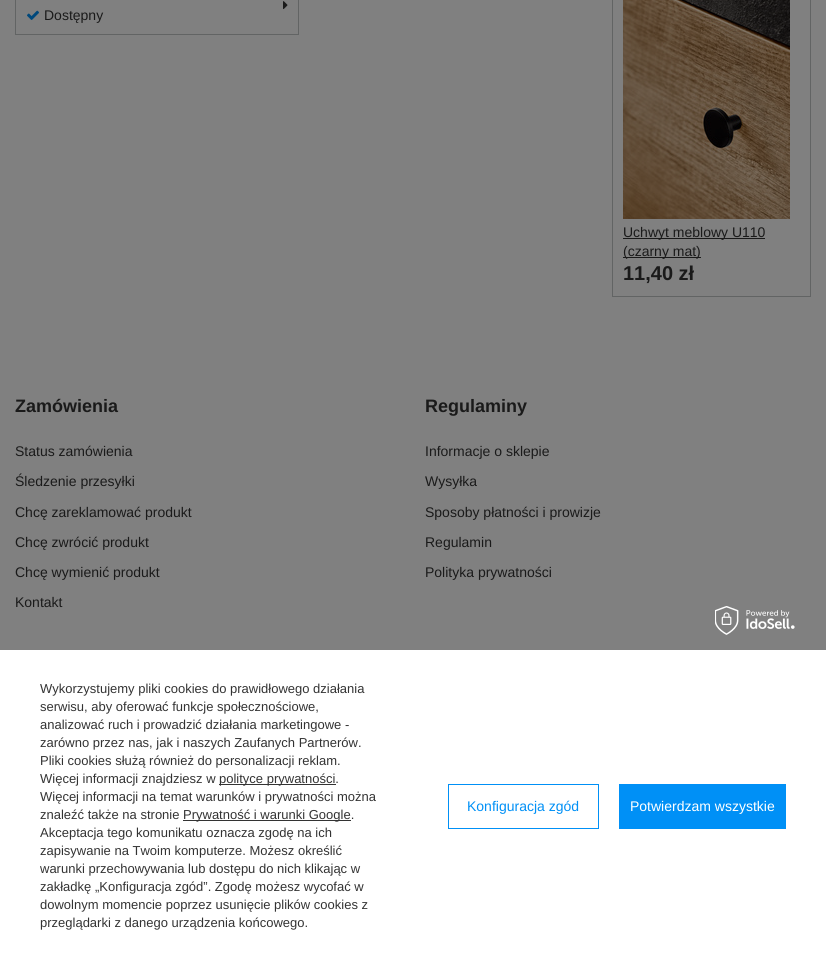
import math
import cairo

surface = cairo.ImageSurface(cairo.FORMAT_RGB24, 826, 962)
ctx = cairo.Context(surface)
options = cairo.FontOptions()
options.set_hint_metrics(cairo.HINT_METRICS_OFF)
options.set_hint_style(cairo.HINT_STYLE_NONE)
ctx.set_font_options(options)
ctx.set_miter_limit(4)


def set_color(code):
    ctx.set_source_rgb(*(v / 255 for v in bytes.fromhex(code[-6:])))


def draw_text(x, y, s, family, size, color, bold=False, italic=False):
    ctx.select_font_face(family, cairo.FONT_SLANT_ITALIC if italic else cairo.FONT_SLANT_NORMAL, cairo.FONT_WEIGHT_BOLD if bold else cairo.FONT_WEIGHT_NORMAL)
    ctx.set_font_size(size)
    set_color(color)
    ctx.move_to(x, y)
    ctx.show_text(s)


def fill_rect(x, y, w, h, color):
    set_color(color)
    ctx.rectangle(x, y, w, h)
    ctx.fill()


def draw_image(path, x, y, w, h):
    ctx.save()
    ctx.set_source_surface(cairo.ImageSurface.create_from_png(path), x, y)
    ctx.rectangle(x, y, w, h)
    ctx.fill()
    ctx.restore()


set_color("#808080")
ctx.paint()
ctx.rectangle(15.5, -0.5, 283, 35)
set_color("#626464")
ctx.set_line_width(1)
ctx.stroke()
draw_image("assets/img1.png", 283, 1, 5, 9)
draw_image("assets/img2.png", 27, 10, 12, 10)
draw_text(44, 20, "Dostępny", "Liberation Sans", 14, "#1a1a1a")
ctx.rectangle(612.5, -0.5, 198, 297)
set_color("#626464")
ctx.stroke()
draw_image("assets/img3.png", 623, 0, 167, 219)
fill_rect(623, 238, 142, 1, "#1a1a1a")
draw_text(623, 237, "Uchwyt meblowy U110", "Liberation Sans", 14, "#1a1a1a")
fill_rect(623, 257, 78, 1, "#1a1a1a")
draw_text(623, 256, "(czarny mat)", "Liberation Sans", 14, "#1a1a1a")
draw_text(623, 280, "11,40 zł", "Liberation Sans", 20, "#1a1a1a", bold=True)
draw_text(15, 412, "Zamówienia", "Liberation Sans", 18, "#1a1a1a", bold=True)
draw_text(15, 456, "Status zamówienia", "Liberation Sans", 14, "#1a1a1a")
draw_text(15, 486, "Śledzenie przesyłki", "Liberation Sans", 14, "#1a1a1a")
draw_text(15, 517, "Chcę zareklamować produkt", "Liberation Sans", 14, "#1a1a1a")
draw_text(15, 547, "Chcę zwrócić produkt", "Liberation Sans", 14, "#1a1a1a")
draw_text(15, 577, "Chcę wymienić produkt", "Liberation Sans", 14, "#1a1a1a")
draw_text(15, 607, "Kontakt", "Liberation Sans", 14, "#1a1a1a")
draw_text(425, 412, "Regulaminy", "Liberation Sans", 18, "#1a1a1a", bold=True)
draw_text(425, 456, "Informacje o sklepie", "Liberation Sans", 14, "#1a1a1a")
draw_text(425, 486, "Wysyłka", "Liberation Sans", 14, "#1a1a1a")
draw_text(425, 517, "Sposoby płatności i prowizje", "Liberation Sans", 14, "#1a1a1a")
draw_text(425, 547, "Regulamin", "Liberation Sans", 14, "#1a1a1a")
draw_text(425, 577, "Polityka prywatności", "Liberation Sans", 14, "#1a1a1a")
fill_rect(0, 650, 826, 312, "#ffffff")
draw_image("assets/img4.png", 715, 606, 80, 29)
draw_text(40, 693, "Wykorzystujemy pliki cookies do prawidłowego działania", "Liberation Sans", 13, "#333333")
draw_text(40, 711, "serwisu, aby oferować funkcje społecznościowe,", "Liberation Sans", 13, "#333333")
draw_text(40, 729, "analizować ruch i prowadzić działania marketingowe -", "Liberation Sans", 13, "#333333")
draw_text(40, 747, "zarówno przez nas, jak i naszych Zaufanych Partnerów.", "Liberation Sans", 13, "#333333")
draw_text(40, 765, "Pliki cookies służą również do personalizacji reklam.", "Liberation Sans", 13, "#333333")
draw_text(40, 783, "Więcej informacji znajdziesz w", "Liberation Sans", 13, "#333333")
fill_rect(219, 784, 117, 1, "#333333")
draw_text(219, 783, "polityce prywatności.", "Liberation Sans", 13, "#333333")
draw_text(40, 801, "Więcej informacji na temat warunków i prywatności można", "Liberation Sans", 13, "#333333")
draw_text(40, 819, "znaleźć także na stronie", "Liberation Sans", 13, "#333333")
fill_rect(183, 820, 168, 1, "#333333")
draw_text(183, 819, "Prywatność i warunki Google.", "Liberation Sans", 13, "#333333")
draw_text(40, 837, "Akceptacja tego komunikatu oznacza zgodę na ich", "Liberation Sans", 13, "#333333")
draw_text(40, 855, "zapisywanie na Twoim komputerze. Możesz określić", "Liberation Sans", 13, "#333333")
draw_text(40, 873, "warunki przechowywania lub dostępu do nich klikając w", "Liberation Sans", 13, "#333333")
draw_text(40, 891, "zakładkę „Konfiguracja zgód”. Zgodę możesz wycofać w", "Liberation Sans", 13, "#333333")
draw_text(40, 909, "dowolnym momencie poprzez usunięcie plików cookies z", "Liberation Sans", 13, "#333333")
draw_text(40, 927, "przeglądarki z danego urządzenia końcowego.", "Liberation Sans", 13, "#333333")
ctx.rectangle(448.5, 784.5, 150, 44)
set_color("#0090f6")
ctx.stroke()
draw_text(467, 811, "Konfiguracja zgód", "Liberation Sans", 14, "#0090f6")
fill_rect(619, 784, 167, 45, "#0090f6")
draw_text(630, 811, "Potwierdzam wszystkie", "Liberation Sans", 14, "#ffffff")
surface.write_to_png("output.png")
